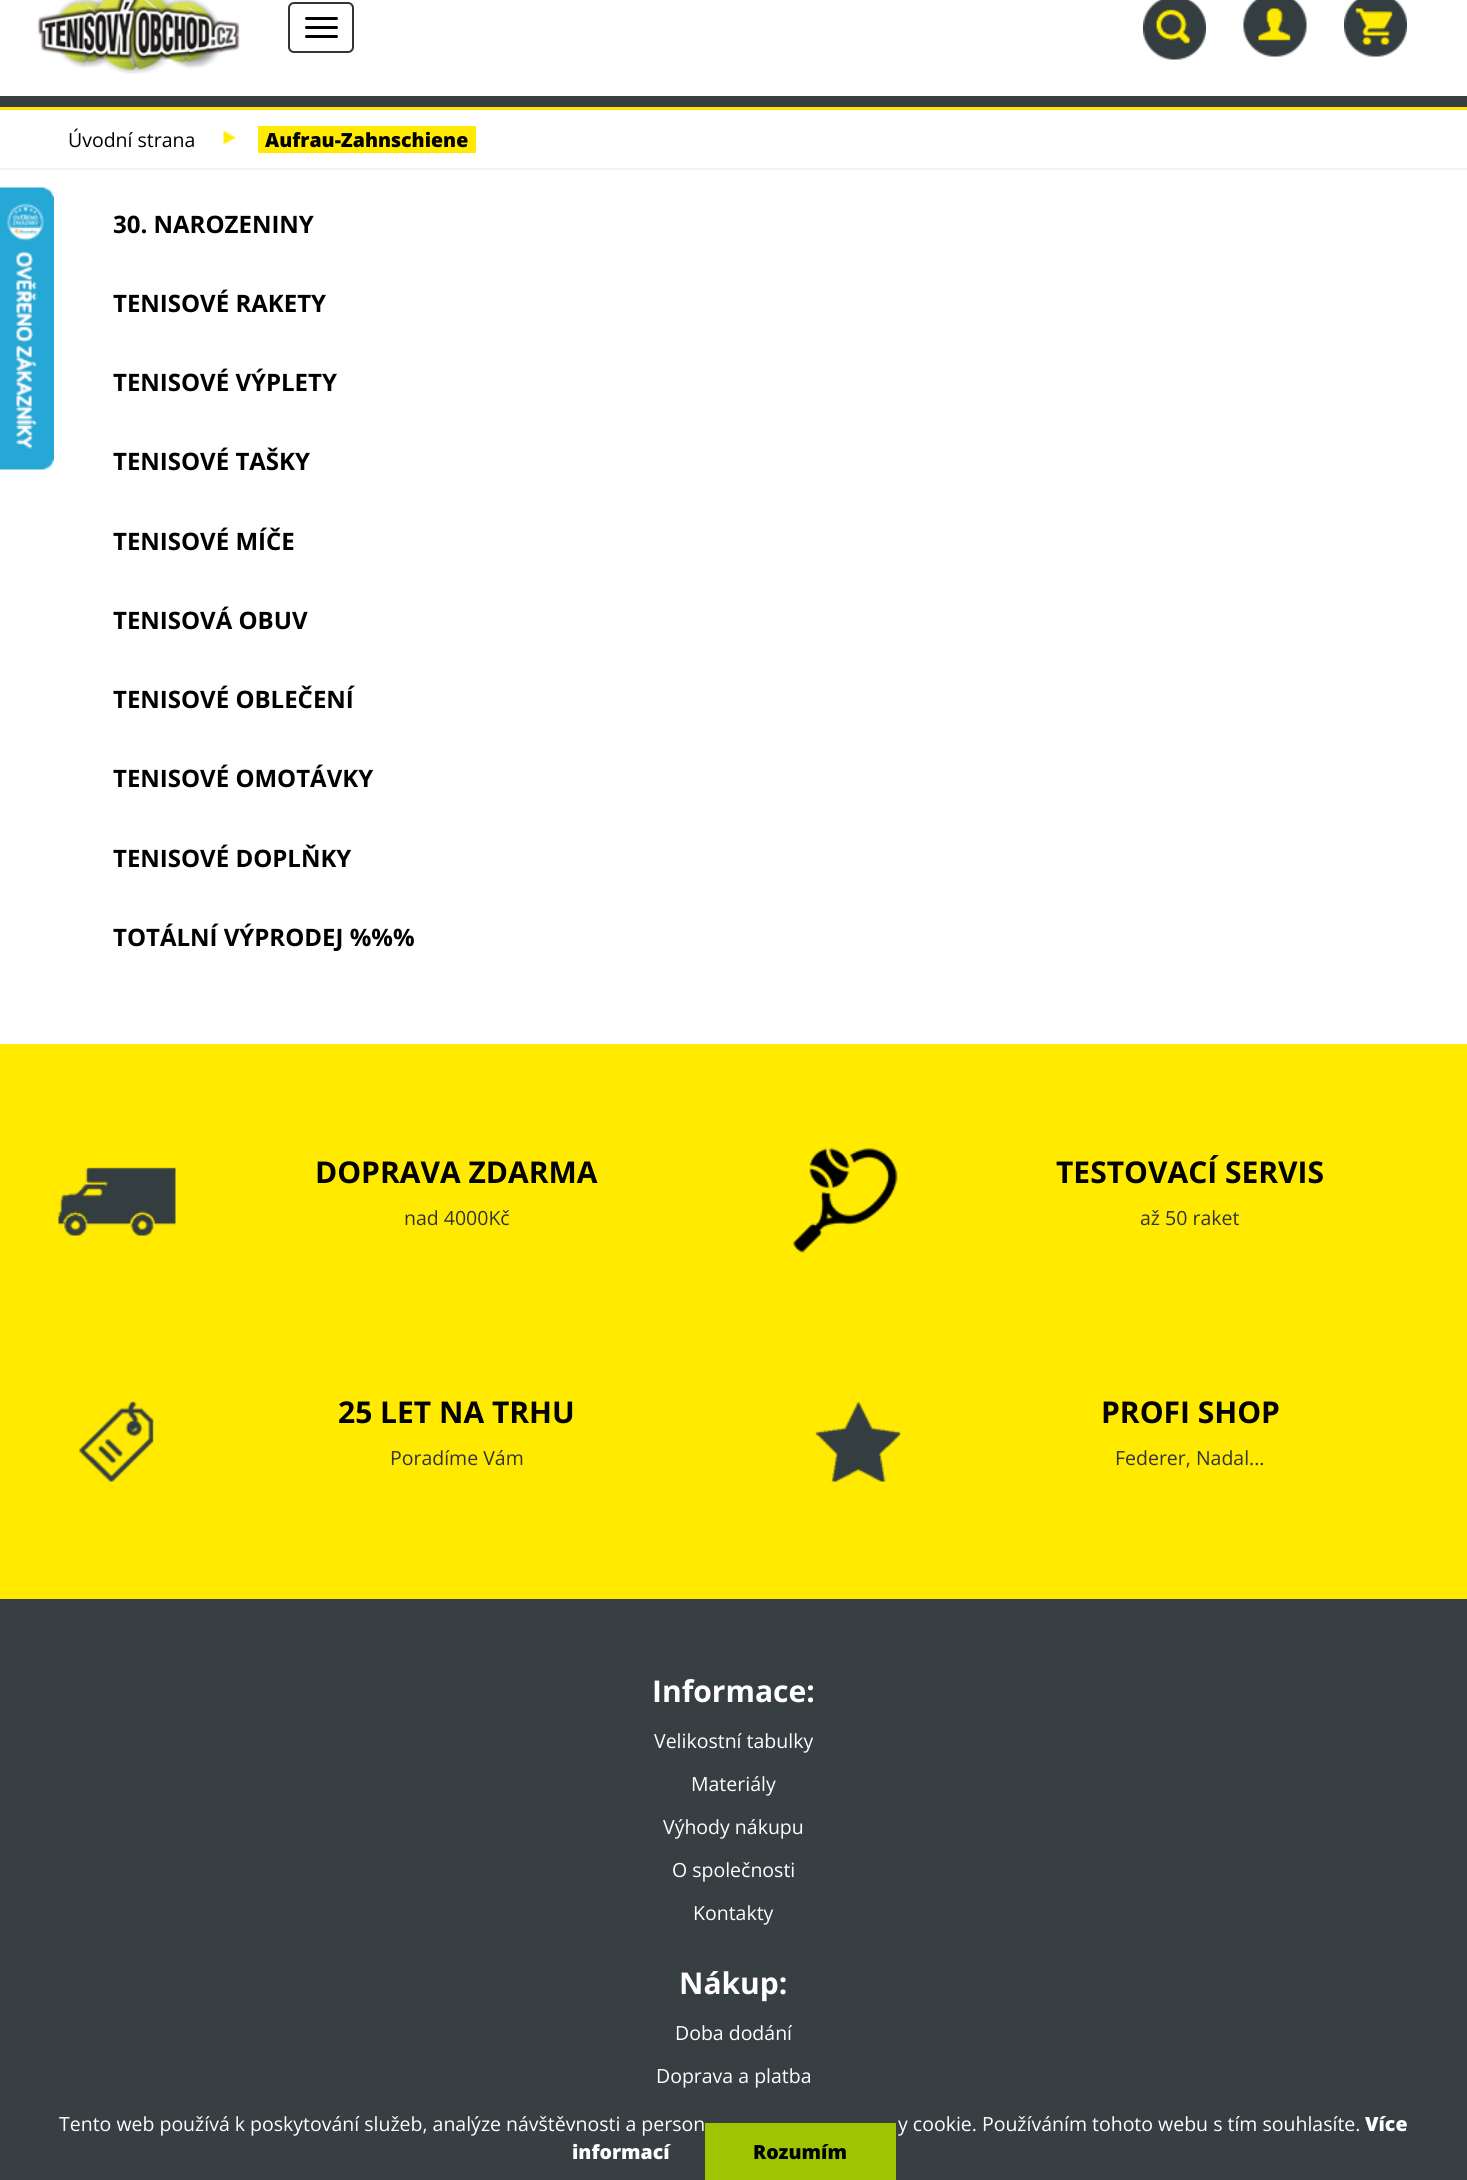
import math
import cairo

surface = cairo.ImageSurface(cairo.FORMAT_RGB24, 1467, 2180)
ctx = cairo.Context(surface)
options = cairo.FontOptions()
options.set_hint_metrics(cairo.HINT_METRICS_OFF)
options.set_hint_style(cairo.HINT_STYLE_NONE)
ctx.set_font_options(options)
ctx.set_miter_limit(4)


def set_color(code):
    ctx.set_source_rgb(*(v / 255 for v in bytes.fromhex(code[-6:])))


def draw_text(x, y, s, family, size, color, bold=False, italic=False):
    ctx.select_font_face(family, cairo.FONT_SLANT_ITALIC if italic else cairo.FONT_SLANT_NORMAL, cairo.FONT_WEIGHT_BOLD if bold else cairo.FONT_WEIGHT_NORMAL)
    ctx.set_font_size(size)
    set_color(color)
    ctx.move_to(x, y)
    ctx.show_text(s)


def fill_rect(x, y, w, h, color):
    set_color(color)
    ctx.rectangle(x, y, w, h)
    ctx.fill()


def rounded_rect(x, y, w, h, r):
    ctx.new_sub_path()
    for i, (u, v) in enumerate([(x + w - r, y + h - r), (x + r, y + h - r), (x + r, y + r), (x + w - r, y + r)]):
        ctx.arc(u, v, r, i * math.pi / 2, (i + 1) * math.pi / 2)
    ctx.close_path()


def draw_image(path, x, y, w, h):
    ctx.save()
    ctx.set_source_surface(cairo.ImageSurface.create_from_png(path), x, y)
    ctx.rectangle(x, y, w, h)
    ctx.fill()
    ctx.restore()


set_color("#ffffff")
ctx.paint()
draw_image("assets/img1.png", 37, 0, 203, 74)
rounded_rect(289, 3, 64, 49, 5)
set_color("#333333")
ctx.stroke()
set_color("#000000")
rounded_rect(305, 17, 33, 3, 1.5)
ctx.fill()
rounded_rect(305, 26, 33, 3, 1.5)
ctx.fill()
rounded_rect(305, 35, 33, 3, 1.5)
ctx.fill()
draw_image("assets/img2.png", 1143, 0, 63, 60)
draw_image("assets/img3.png", 1243, 0, 64, 57)
draw_image("assets/img4.png", 1344, 0, 63, 57)
fill_rect(0, 96, 1467, 11, "#373f42")
fill_rect(0, 107, 1467, 3, "#ffea00")
draw_image("assets/img5.png", 0, 187, 54, 283)
fill_rect(0, 168, 1467, 2, "#f2f2f2")
draw_text(68, 147, "Úvodní strana", "Open Sans", 19.5, "#000000")
draw_image("assets/img6.png", 223, 130, 13, 15)
fill_rect(258, 126, 218, 27, "#ffea00")
draw_text(265, 147, "Aufrau-Zahnschiene", "Open Sans ExtraBold", 19.5, "#000000")
draw_text(113, 233, "30. NAROZENINY", "Open Sans", 24, "#000000", bold=True)
draw_text(113, 312, "TENISOVÉ RAKETY", "Open Sans", 24, "#000000", bold=True)
draw_text(113, 391, "TENISOVÉ VÝPLETY", "Open Sans", 24, "#000000", bold=True)
draw_text(113, 470, "TENISOVÉ TAŠKY", "Open Sans", 24, "#000000", bold=True)
draw_text(113, 550, "TENISOVÉ MÍČE", "Open Sans", 24, "#000000", bold=True)
draw_text(113, 629, "TENISOVÁ OBUV", "Open Sans", 24, "#000000", bold=True)
draw_text(113, 708, "TENISOVÉ OBLEČENÍ", "Open Sans", 24, "#000000", bold=True)
draw_text(113, 787, "TENISOVÉ OMOTÁVKY", "Open Sans", 24, "#000000", bold=True)
draw_text(113, 867, "TENISOVÉ DOPLŇKY", "Open Sans", 24, "#000000", bold=True)
draw_text(113, 946, "TOTÁLNÍ VÝPRODEJ %%%", "Open Sans", 24, "#000000", bold=True)
fill_rect(0, 1044, 1467, 555, "#ffea00")
draw_image("assets/img7.png", 58, 1167, 118, 69)
draw_text(315, 1183, "DOPRAVA ZDARMA", "Open Sans", 30, "#000000", bold=True)
draw_text(404, 1225, "nad 4000Kč", "Open Sans", 19.5, "#333333")
draw_image("assets/img8.png", 793, 1148, 105, 105)
draw_text(1056, 1183, "TESTOVACÍ SERVIS", "Open Sans", 30, "#000000", bold=True)
draw_text(1140, 1225, "až 50 raket", "Open Sans", 19.5, "#333333")
draw_image("assets/img9.png", 79, 1401, 75, 81)
draw_text(338, 1423, "25 LET NA TRHU", "Open Sans", 30, "#000000", bold=True)
draw_text(390, 1465, "Poradíme Vám", "Open Sans", 19.5, "#333333")
draw_image("assets/img10.png", 815, 1401, 86, 81)
draw_text(1101, 1423, "PROFI SHOP", "Open Sans", 30, "#000000", bold=True)
draw_text(1115, 1465, "Federer, Nadal...", "Open Sans", 19.5, "#333333")
fill_rect(0, 1599, 1467, 581, "#373f42")
draw_text(652, 1702, "Informace:", "Open Sans", 30, "#ffffff", bold=True)
draw_text(654, 1748, "Velikostní tabulky", "Open Sans", 19.5, "#ffffff")
draw_text(691, 1791, "Materiály", "Open Sans", 19.5, "#ffffff")
draw_text(663, 1834, "Výhody nákupu", "Open Sans", 19.5, "#ffffff")
draw_text(672, 1877, "O společnosti", "Open Sans", 19.5, "#ffffff")
draw_text(693, 1920, "Kontakty", "Open Sans", 19.5, "#ffffff")
draw_text(679, 1994, "Nákup:", "Open Sans", 30, "#ffffff", bold=True)
draw_text(675, 2040, "Doba dodání", "Open Sans", 19.5, "#ffffff")
draw_text(656, 2083, "Doprava a platba", "Open Sans", 19.5, "#ffffff")
draw_text(59, 2131, "Tento web používá k poskytování služeb, analýze návštěvnosti a person", "Open Sans", 19.5, "#ffffff")
draw_text(898, 2131, "y cookie. Používáním tohoto webu s tím souhlasíte.", "Open Sans", 19.5, "#ffffff")
draw_text(1365, 2131, "Více", "Open Sans ExtraBold", 19.5, "#ffffff")
draw_text(572, 2159, "informací", "Open Sans ExtraBold", 19.5, "#ffffff")
fill_rect(705, 2123, 191, 57, "#9dc502")
draw_text(753, 2159, "Rozumím", "Open Sans ExtraBold", 19.5, "#000000")
surface.write_to_png("output.png")
